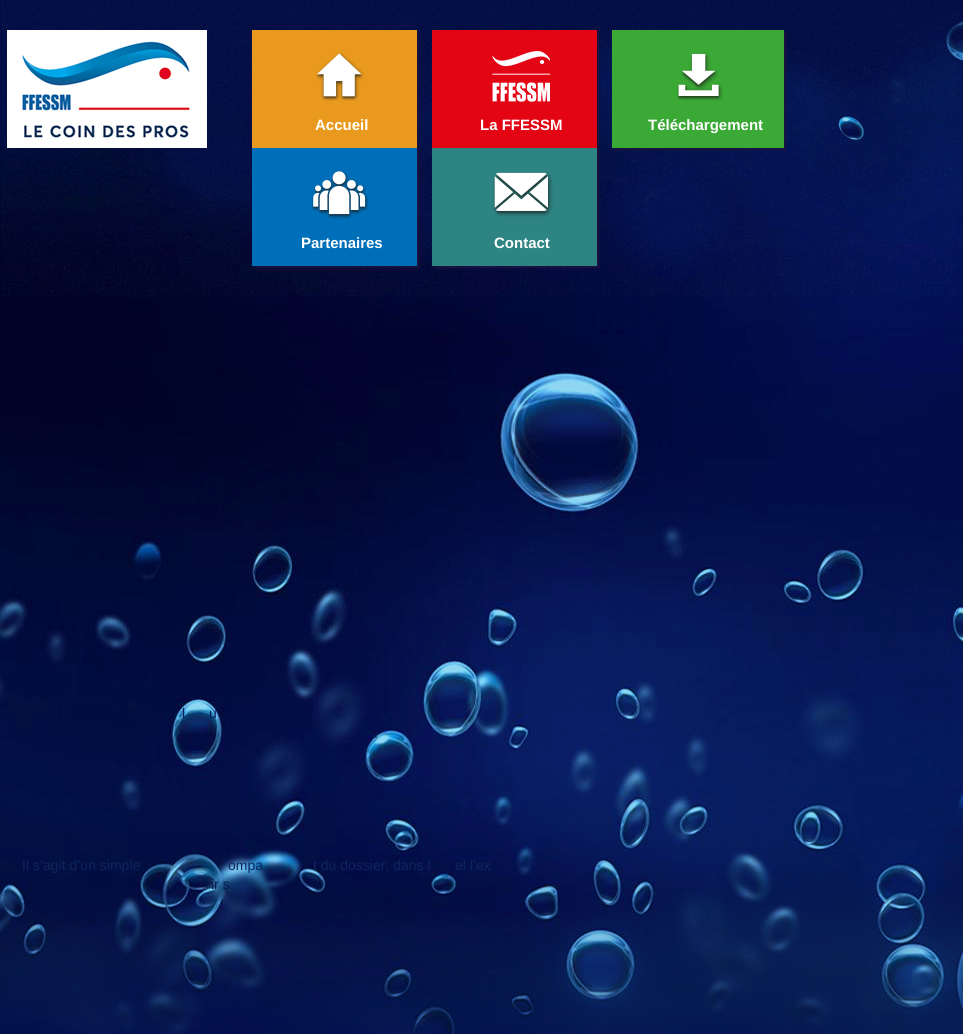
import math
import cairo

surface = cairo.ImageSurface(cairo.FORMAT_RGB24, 963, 1034)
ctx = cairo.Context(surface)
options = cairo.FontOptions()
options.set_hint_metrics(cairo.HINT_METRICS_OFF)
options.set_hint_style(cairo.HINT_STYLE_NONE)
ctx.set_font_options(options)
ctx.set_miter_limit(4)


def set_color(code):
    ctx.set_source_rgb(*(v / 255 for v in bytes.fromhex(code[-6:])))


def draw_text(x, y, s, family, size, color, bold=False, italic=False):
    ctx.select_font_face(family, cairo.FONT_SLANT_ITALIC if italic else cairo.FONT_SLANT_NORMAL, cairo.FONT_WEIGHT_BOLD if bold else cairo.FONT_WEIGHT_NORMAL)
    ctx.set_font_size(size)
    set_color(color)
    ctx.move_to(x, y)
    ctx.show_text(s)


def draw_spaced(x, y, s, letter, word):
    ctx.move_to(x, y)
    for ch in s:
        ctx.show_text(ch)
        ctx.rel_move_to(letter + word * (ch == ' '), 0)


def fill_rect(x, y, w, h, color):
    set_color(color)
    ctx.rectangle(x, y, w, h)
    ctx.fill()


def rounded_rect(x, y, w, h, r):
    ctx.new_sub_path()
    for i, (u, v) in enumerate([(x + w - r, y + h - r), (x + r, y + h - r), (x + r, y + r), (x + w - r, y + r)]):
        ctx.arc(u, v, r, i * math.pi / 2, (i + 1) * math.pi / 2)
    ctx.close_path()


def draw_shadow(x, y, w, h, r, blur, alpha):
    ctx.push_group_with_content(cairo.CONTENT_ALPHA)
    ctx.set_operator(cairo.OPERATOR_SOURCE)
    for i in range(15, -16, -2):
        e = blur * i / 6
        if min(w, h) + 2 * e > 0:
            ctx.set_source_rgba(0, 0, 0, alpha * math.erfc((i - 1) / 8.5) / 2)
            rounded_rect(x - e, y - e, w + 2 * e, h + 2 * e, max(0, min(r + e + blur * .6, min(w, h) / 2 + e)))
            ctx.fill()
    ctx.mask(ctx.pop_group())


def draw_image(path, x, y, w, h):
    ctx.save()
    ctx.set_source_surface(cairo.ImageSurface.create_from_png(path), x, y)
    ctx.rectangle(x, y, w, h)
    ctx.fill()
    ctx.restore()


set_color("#ffffff")
ctx.paint()
draw_image("assets/img1.png", 0, 0, 963, 1034)
draw_image("assets/img2.png", 2, 0, 960, 296)
draw_image("assets/img3.png", 7, 30, 200, 118)
set_color("#19123e")
draw_shadow(254, 32, 165, 118, 0, 1, 1)
fill_rect(252, 30, 165, 118, "#e99a1e")
draw_image("assets/img4.png", 316, 52, 48, 49)
draw_text(315, 130, "Accueil", "Liberation Sans", 15, "#ffffff", bold=True)
set_color("#19123e")
draw_shadow(434, 32, 165, 118, 0, 1, 1)
fill_rect(432, 30, 165, 118, "#e30513")
draw_image("assets/img5.png", 492, 51, 58, 51)
draw_text(480, 130, "La FFESSM", "Liberation Sans", 15, "#ffffff", bold=True)
set_color("#19123e")
draw_shadow(614, 32, 172, 118, 0, 1, 1)
fill_rect(612, 30, 172, 118, "#3aa935")
draw_image("assets/img6.png", 677, 52, 46, 49)
draw_text(648, 130, "Téléchargement", "Liberation Sans", 15, "#ffffff", bold=True)
set_color("#19123e")
draw_shadow(254, 150, 165, 118, 0, 1, 1)
fill_rect(252, 148, 165, 118, "#006fb9")
draw_image("assets/img7.png", 311, 170, 58, 49)
draw_text(301, 248, "Partenaires", "Liberation Sans", 15, "#ffffff", bold=True)
set_color("#19123e")
draw_shadow(434, 150, 165, 118, 0, 1, 1)
fill_rect(432, 148, 165, 118, "#2d8482")
draw_image("assets/img8.png", 493, 172, 60, 45)
draw_text(494, 248, "Contact", "Liberation Sans", 15, "#ffffff", bold=True)
ctx.select_font_face("Liberation Sans")
ctx.set_font_size(14)
set_color("#091c58")
draw_spaced(182, 718, "l", 0, 3)
draw_spaced(209, 718, "u", 0, 3)
draw_text(374, 738, ".", "Liberation Sans", 14, "#051249")
draw_text(22, 870, "Il s’agit d’un simple", "Liberation Sans", 14, "#0d245d")
draw_text(228, 870, "ompa", "Liberation Sans", 14, "#0d245d")
draw_text(313, 870, "t du dossier, dans l", "Liberation Sans", 14, "#0d245d")
draw_text(455, 870, "el l’ex", "Liberation Sans", 14, "#0d245d")
draw_text(211, 889, "ir s", "Liberation Sans", 14, "#081b50")
surface.write_to_png("output.png")
